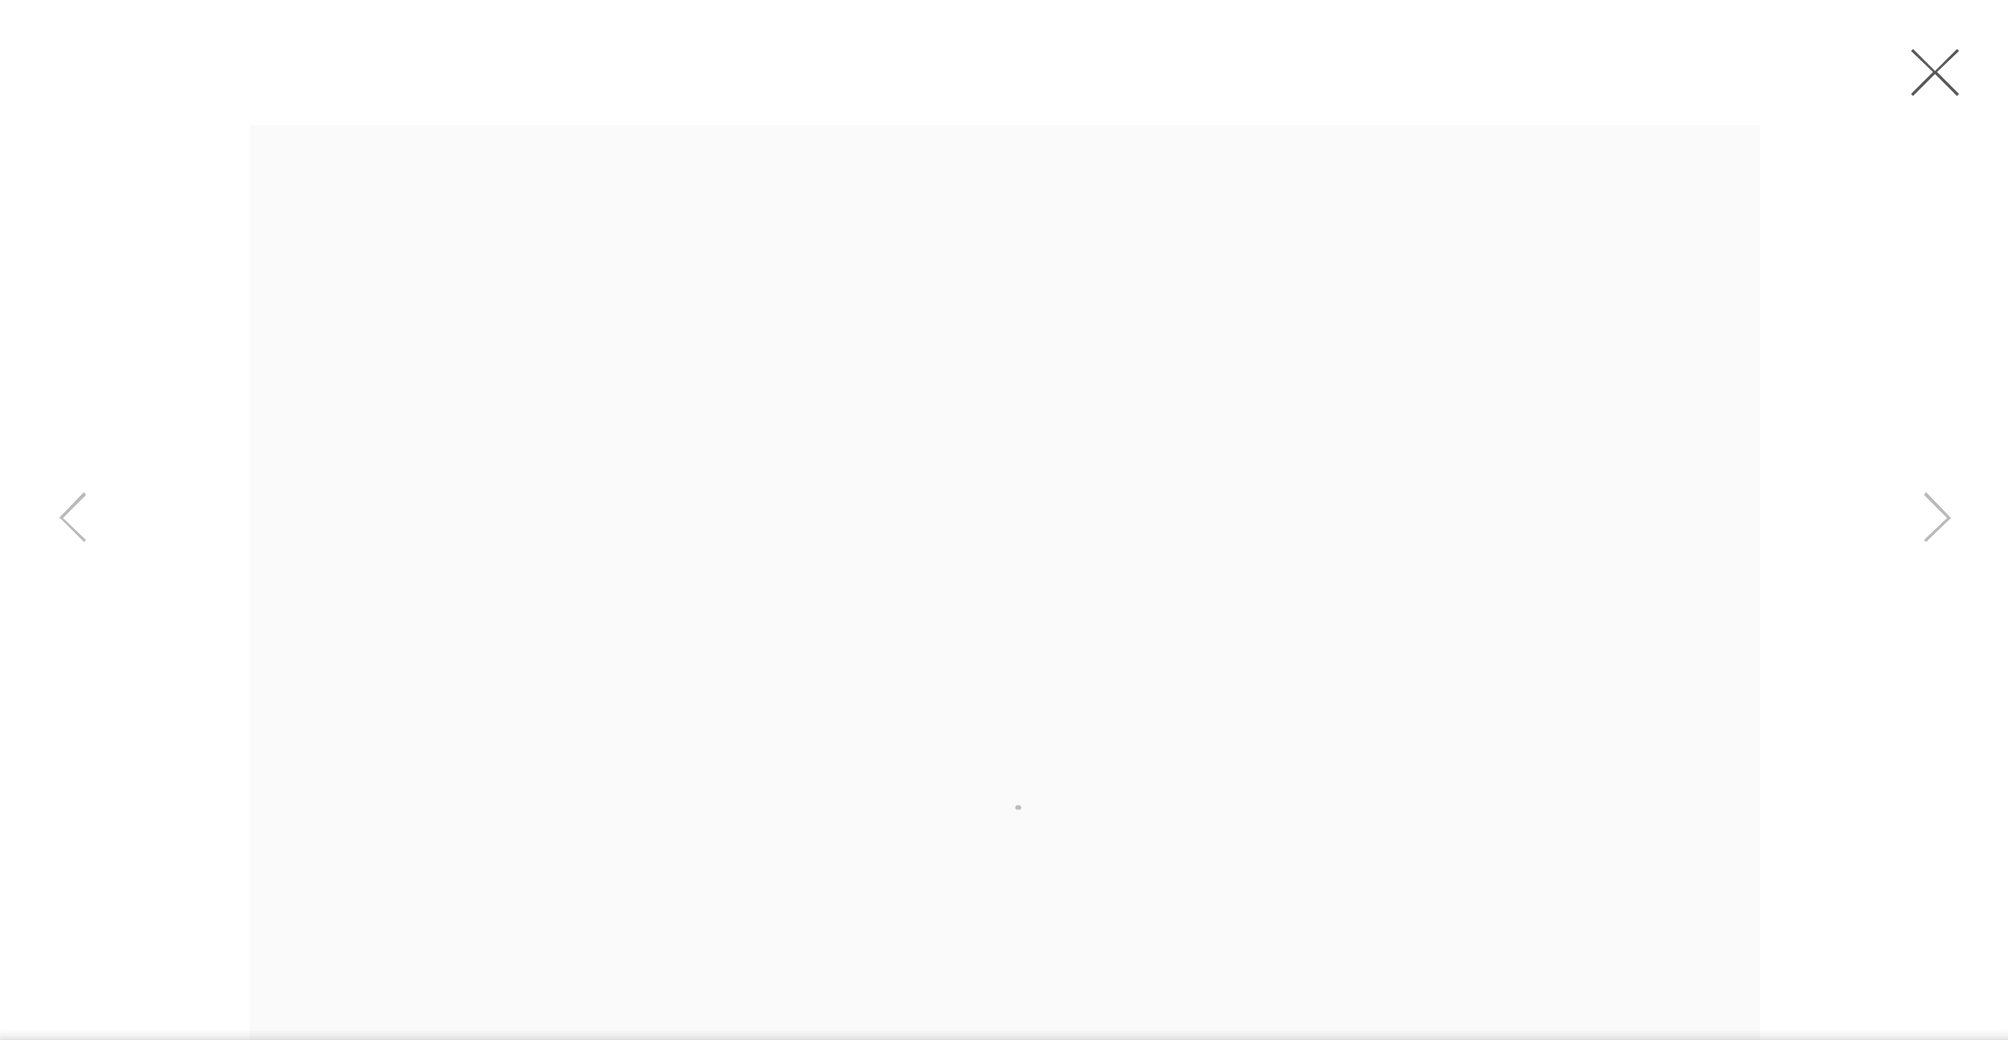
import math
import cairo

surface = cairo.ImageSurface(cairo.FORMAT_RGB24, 2008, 1040)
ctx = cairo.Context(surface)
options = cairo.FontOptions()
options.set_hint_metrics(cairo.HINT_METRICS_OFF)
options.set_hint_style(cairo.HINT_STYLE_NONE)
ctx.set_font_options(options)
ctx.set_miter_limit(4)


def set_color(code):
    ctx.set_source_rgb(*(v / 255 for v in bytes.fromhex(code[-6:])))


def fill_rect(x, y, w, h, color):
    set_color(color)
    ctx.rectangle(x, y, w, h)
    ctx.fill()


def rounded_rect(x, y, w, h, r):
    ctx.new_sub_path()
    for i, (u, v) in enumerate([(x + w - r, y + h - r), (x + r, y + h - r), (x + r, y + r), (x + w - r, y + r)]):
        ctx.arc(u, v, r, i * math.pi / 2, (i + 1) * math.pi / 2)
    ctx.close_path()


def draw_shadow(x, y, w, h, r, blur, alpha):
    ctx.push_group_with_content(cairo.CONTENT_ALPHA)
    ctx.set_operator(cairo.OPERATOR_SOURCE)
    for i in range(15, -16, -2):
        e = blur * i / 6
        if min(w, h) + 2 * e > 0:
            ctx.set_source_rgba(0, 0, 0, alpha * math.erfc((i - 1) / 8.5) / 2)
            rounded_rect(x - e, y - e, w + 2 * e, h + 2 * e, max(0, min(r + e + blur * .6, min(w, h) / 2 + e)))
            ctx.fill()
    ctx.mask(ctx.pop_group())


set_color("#ffffff")
ctx.paint()
set_color("#555555")
ctx.new_path()
ctx.move_to(1959, 51)
ctx.line_to(1957, 49)
ctx.line_to(1935, 71)
ctx.line_to(1913, 49)
ctx.line_to(1911, 51)
ctx.line_to(1933, 72)
ctx.line_to(1911, 94)
ctx.line_to(1913, 96)
ctx.line_to(1935, 74)
ctx.line_to(1957, 96)
ctx.line_to(1959, 94)
ctx.line_to(1937, 72)
ctx.close_path()
ctx.fill()
fill_rect(250, 125, 1510, 915, "#fafafa")
ctx.new_path()
ctx.move_to(1017.5, 807.5)
ctx.line_to(1019, 807.5)
set_color("#bbbbbb")
ctx.set_line_width(4.5)
ctx.set_line_cap(cairo.LINE_CAP_ROUND)
ctx.stroke()
set_color("#b9b9b9")
ctx.new_path()
ctx.move_to(61, 519)
ctx.line_to(84, 542)
ctx.line_to(86, 540)
ctx.line_to(63, 518)
ctx.line_to(86, 495)
ctx.line_to(84, 492)
ctx.line_to(59, 518)
ctx.close_path()
ctx.fill()
ctx.new_path()
ctx.move_to(1951, 518)
ctx.line_to(1926, 492)
ctx.line_to(1924, 495)
ctx.line_to(1947, 518)
ctx.line_to(1924, 540)
ctx.line_to(1926, 542)
ctx.close_path()
ctx.fill()
set_color("#000000")
draw_shadow(0, 1040, 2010, 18, 0, 6, 0.23)
surface.write_to_png("output.png")
